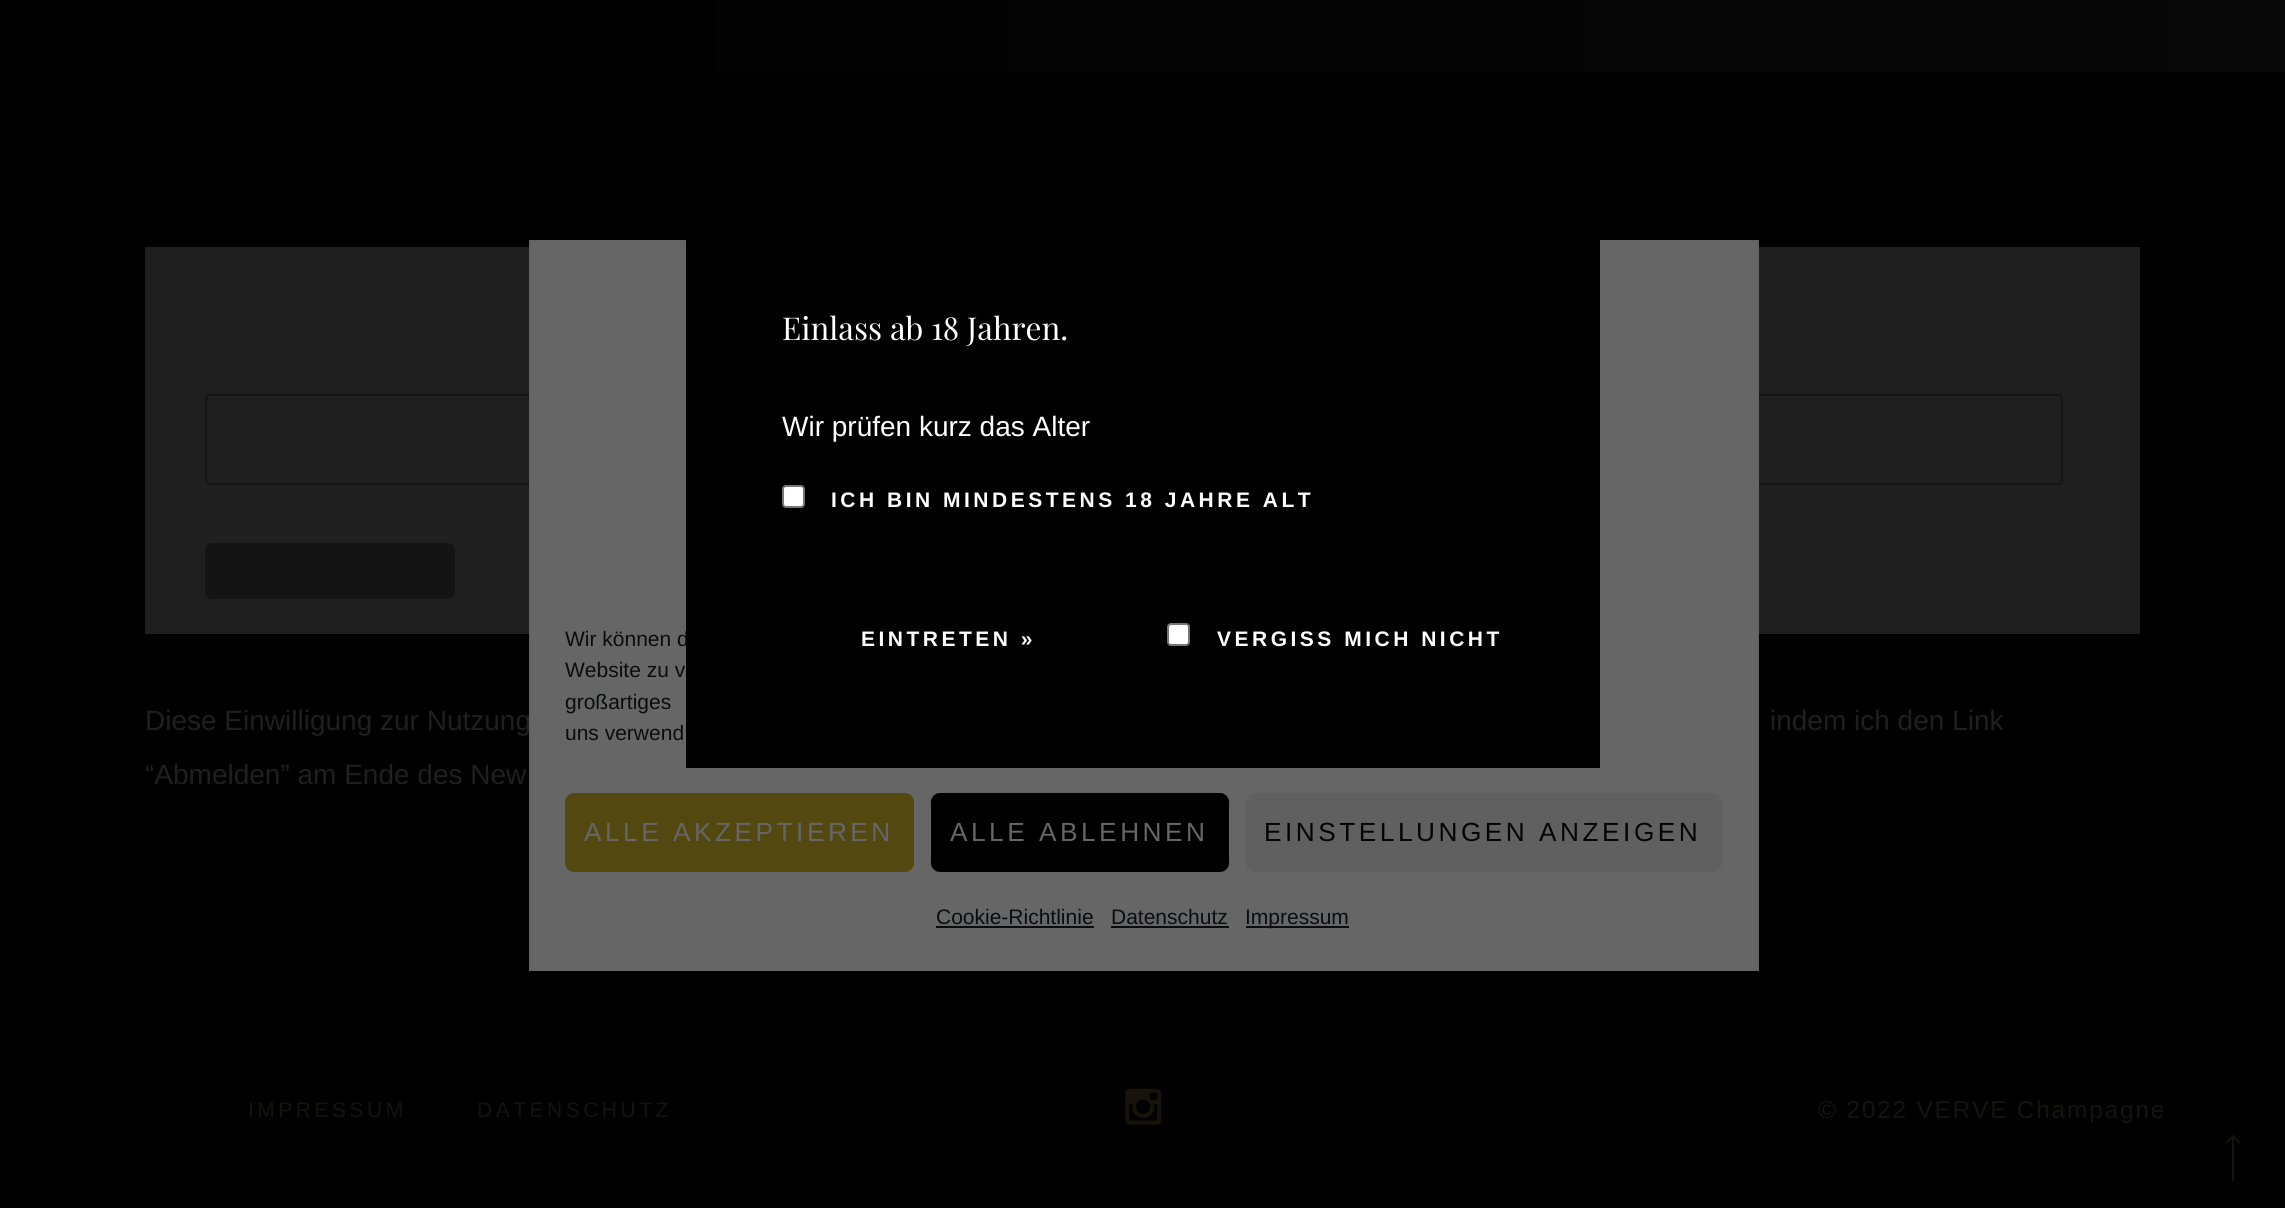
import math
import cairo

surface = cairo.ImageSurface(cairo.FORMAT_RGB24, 2285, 1208)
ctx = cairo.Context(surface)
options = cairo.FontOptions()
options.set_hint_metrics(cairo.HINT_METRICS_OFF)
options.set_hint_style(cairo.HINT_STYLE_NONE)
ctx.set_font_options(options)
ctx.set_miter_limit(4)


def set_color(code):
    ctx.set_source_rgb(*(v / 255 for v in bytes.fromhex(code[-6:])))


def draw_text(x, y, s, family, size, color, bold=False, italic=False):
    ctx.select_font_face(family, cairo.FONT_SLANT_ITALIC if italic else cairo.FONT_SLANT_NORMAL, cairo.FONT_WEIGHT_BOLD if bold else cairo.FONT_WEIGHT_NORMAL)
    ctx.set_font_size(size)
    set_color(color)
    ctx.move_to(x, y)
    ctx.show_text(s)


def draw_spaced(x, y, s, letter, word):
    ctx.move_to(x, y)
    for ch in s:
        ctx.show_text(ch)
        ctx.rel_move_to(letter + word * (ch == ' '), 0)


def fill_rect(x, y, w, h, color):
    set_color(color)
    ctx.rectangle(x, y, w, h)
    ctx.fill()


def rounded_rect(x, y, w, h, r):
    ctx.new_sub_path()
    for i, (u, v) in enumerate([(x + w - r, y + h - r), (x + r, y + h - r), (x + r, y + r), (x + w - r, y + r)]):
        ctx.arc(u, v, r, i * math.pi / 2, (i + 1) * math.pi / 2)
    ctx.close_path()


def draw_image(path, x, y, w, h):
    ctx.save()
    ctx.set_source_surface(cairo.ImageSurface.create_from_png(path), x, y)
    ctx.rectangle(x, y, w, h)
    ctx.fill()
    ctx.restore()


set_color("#000000")
ctx.paint()
fill_rect(145, 247, 1995, 387, "#1f1f1f")
rounded_rect(206, 395, 1856, 89, 4)
set_color("#141515")
ctx.stroke()
draw_text(145, 730, "Diese Einwilligung zur Nutzung", "Liberation Sans", 28, "#1f1f1f")
set_color("#666666")
ctx.rectangle(530, 241, 1228, 729)
ctx.fill_preserve()
set_color("#646464")
ctx.stroke()
draw_text(565, 646, "Wir können d", "Liberation Sans", 21, "#0a0c0e")
fill_rect(686, 240, 914, 528, "#000000")
draw_text(782, 340, "Einlass ab 18 Jahren.", "Playfair Display", 31.5, "#ffffff")
draw_text(782, 436, "Wir prüfen kurz das Alter", "Liberation Sans", 28, "#ffffff")
rounded_rect(783, 486, 21, 21, 3)
ctx.fill_preserve()
set_color("#767676")
ctx.stroke()
ctx.select_font_face("Liberation Sans", cairo.FONT_SLANT_NORMAL, cairo.FONT_WEIGHT_BOLD)
ctx.set_font_size(21)
set_color("#ffffff")
draw_spaced(831, 507, "ICH BIN MINDESTENS 18 JAHRE ALT", 3.5, 0)
draw_spaced(861, 646, "EINTRETEN »", 3.5, 0)
rounded_rect(1168, 624, 21, 21, 3)
ctx.fill_preserve()
set_color("#767676")
ctx.stroke()
set_color("#ffffff")
draw_spaced(1217, 646, "VERGISS MICH NICHT", 3.5, 0)
draw_text(565, 677, "Website zu v", "Liberation Sans", 21, "#0a0c0e")
draw_text(565, 709, "großartiges", "Liberation Sans", 21, "#0a0c0e")
draw_text(565, 740, "uns verwend", "Liberation Sans", 21, "#0a0c0e")
set_color("#544811")
rounded_rect(566, 794, 347, 77, 8)
ctx.fill_preserve()
ctx.stroke()
ctx.set_font_size(26.25)
set_color("#666666")
draw_spaced(584, 841, "ALLE AKZEPTIEREN", 3.5, 0)
set_color("#000000")
rounded_rect(932, 794, 296, 77, 8)
ctx.fill_preserve()
ctx.stroke()
set_color("#666666")
draw_spaced(950, 841, "ALLE ABLEHNEN", 3.5, 0)
set_color("#606060")
rounded_rect(1246, 793, 476, 79, 9)
ctx.fill()
set_color("#040404")
draw_spaced(1264, 841, "EINSTELLUNGEN ANZEIGEN", 3.5, 0)
draw_text(936, 924, "Cookie-Richtlinie", "Liberation Sans", 21, "#0a0c0e")
fill_rect(936, 926, 158, 2, "#0a0c0e")
draw_text(1111, 924, "Datenschutz", "Liberation Sans", 21, "#0a0c0e")
fill_rect(1111, 926, 118, 2, "#0a0c0e")
fill_rect(1246, 926, 103, 2, "#0a0c0e")
draw_text(1245, 924, "Impressum", "Liberation Sans", 21, "#0a0c0e")
gradient = cairo.LinearGradient(0, -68, 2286, -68)
gradient.add_color_stop_rgba(0, 0, 0, 0, 1)
gradient.add_color_stop_rgba(1, 0.031, 0.031, 0.031, 1)
ctx.set_source(gradient)
ctx.rectangle(714, 0, 1571, 72)
ctx.fill()
set_color("#141414")
rounded_rect(205, 543, 250, 56, 7)
ctx.fill()
draw_text(1770, 730, "indem ich den Link", "Liberation Sans", 28, "#1f1f1f")
draw_text(145, 784, "“Abmelden” am Ende des New", "Liberation Sans", 28, "#1f1f1f")
ctx.set_font_size(21)
set_color("#16130a")
draw_spaced(248, 1117, "IMPRESSUM", 3.5, 0)
draw_spaced(477, 1117, "DATENSCHUTZ", 3.5, 0)
draw_image("assets/img1.png", 1125, 1088, 37, 37)
ctx.set_font_size(24.5)
draw_spaced(1818, 1118, "© 2022 VERVE Champagne", 1.75, 0)
ctx.set_fill_rule(cairo.FILL_RULE_EVEN_ODD)
ctx.new_path()
ctx.move_to(2234, 1139)
ctx.line_to(2234, 1181)
ctx.line_to(2232, 1181)
ctx.line_to(2232, 1139)
ctx.line_to(2226, 1144)
ctx.line_to(2225, 1143)
ctx.line_to(2232, 1136)
ctx.line_to(2232, 1135)
ctx.line_to(2233, 1135)
ctx.line_to(2241, 1143)
ctx.line_to(2240, 1144)
ctx.close_path()
ctx.fill()
surface.write_to_png("output.png")
